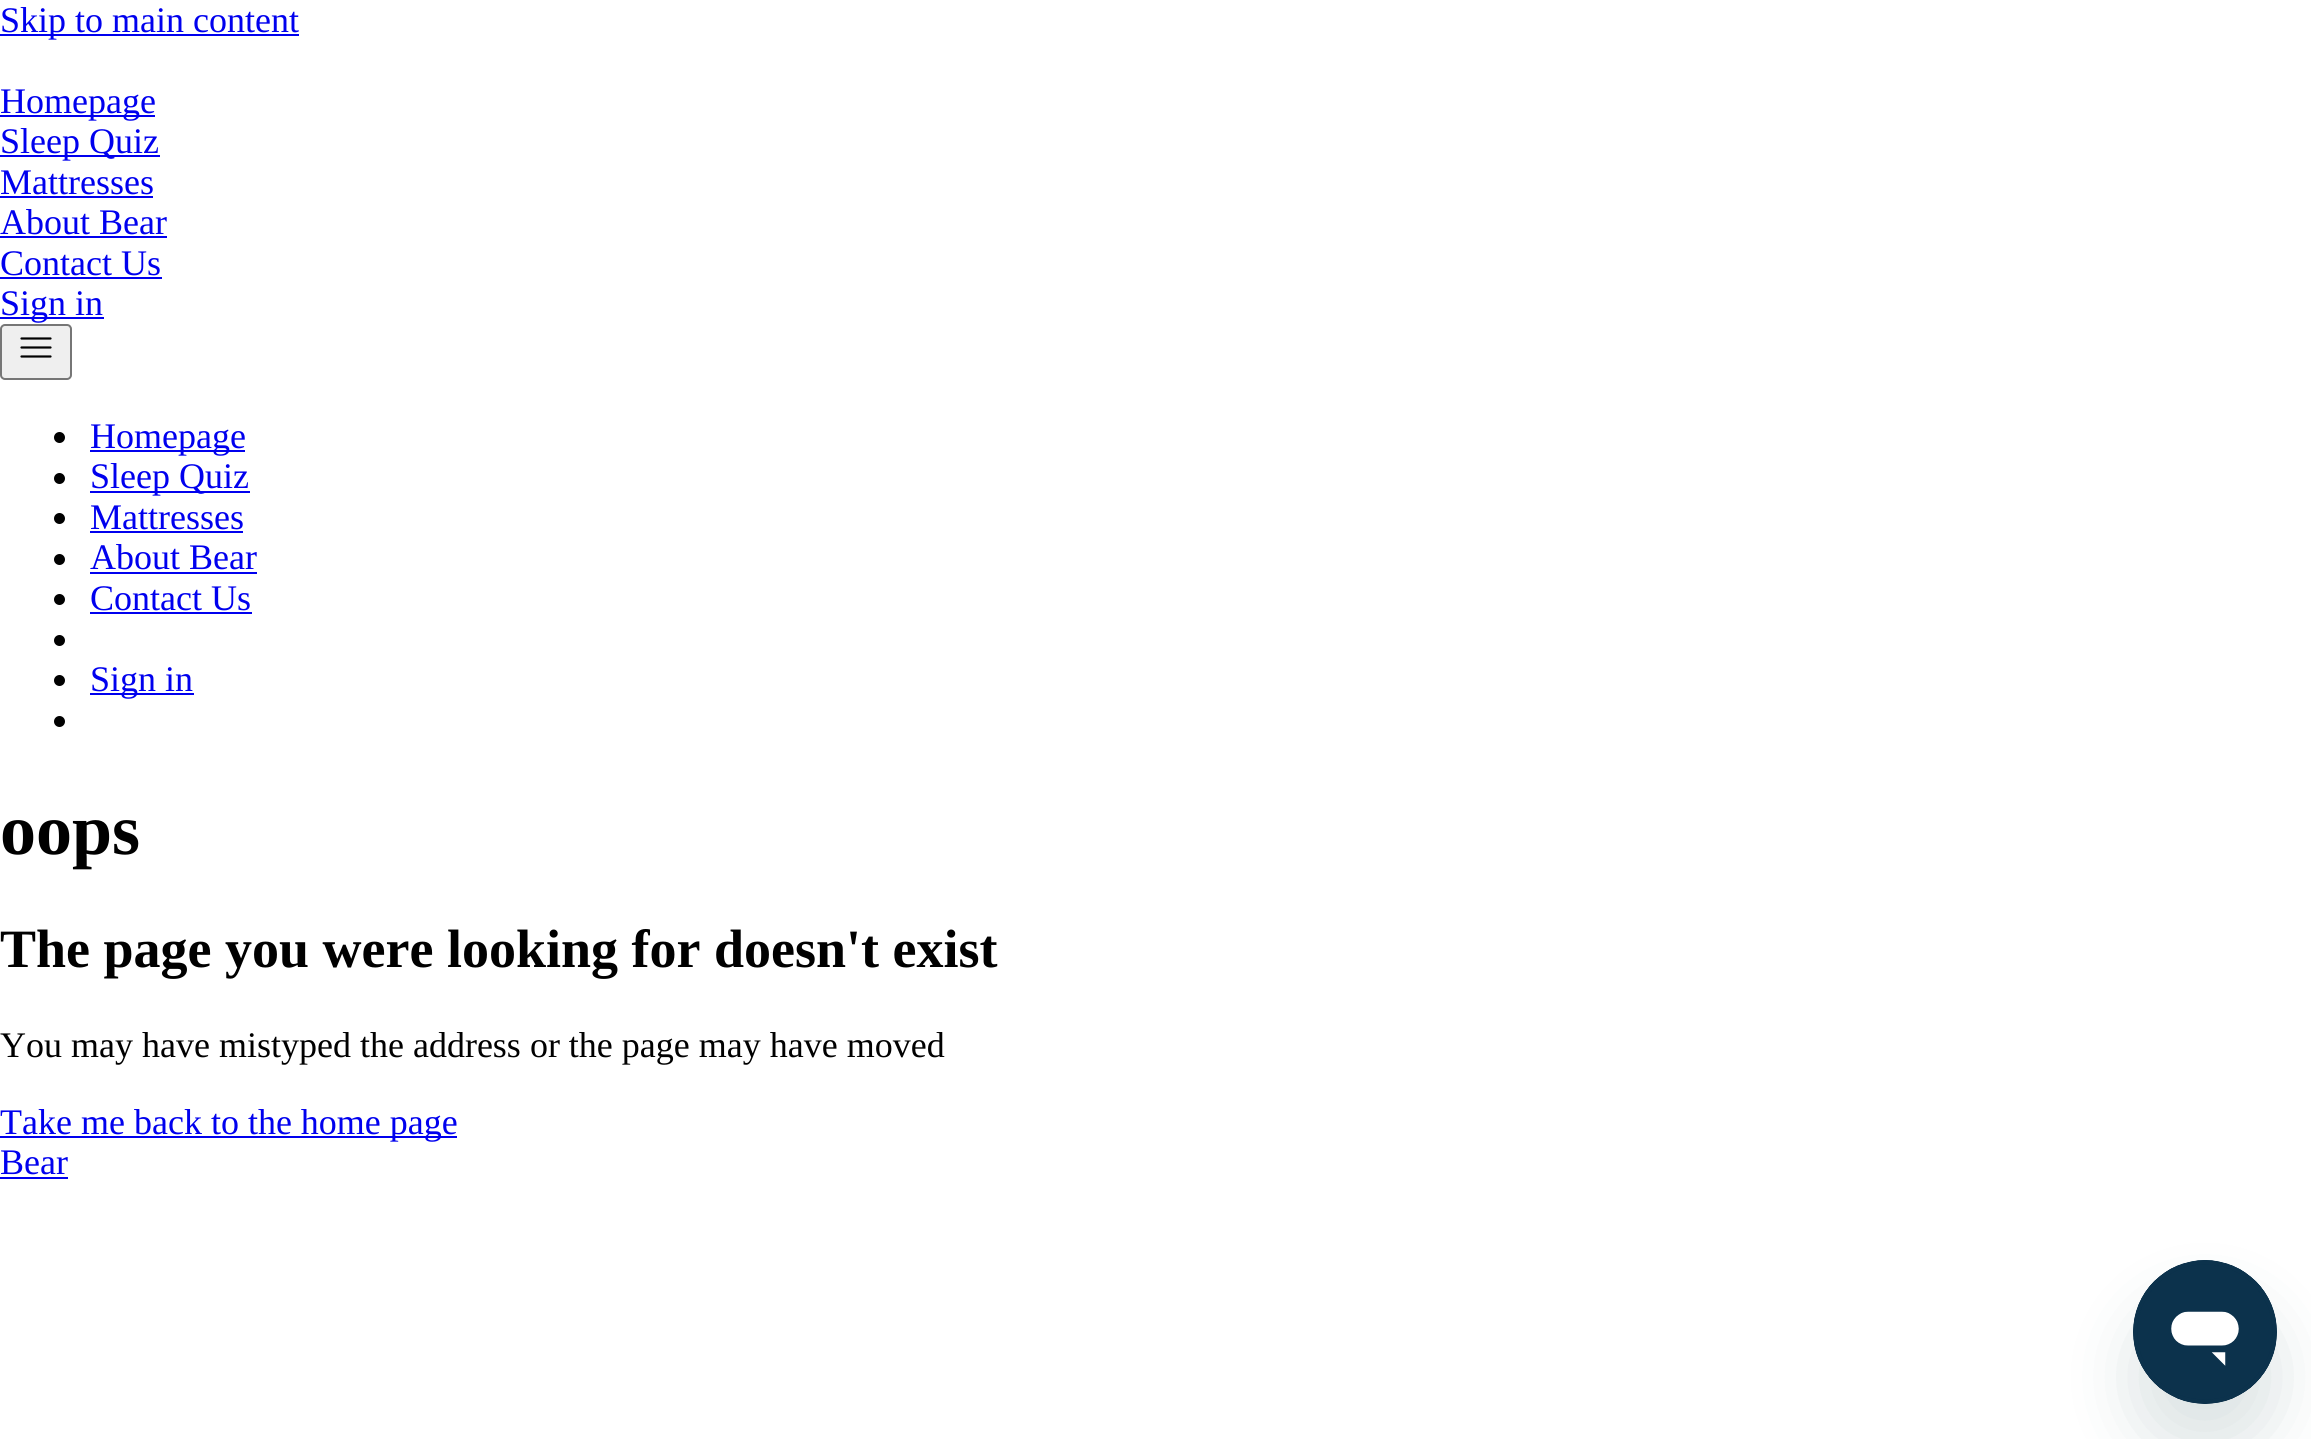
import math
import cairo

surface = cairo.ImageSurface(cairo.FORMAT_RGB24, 2311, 1439)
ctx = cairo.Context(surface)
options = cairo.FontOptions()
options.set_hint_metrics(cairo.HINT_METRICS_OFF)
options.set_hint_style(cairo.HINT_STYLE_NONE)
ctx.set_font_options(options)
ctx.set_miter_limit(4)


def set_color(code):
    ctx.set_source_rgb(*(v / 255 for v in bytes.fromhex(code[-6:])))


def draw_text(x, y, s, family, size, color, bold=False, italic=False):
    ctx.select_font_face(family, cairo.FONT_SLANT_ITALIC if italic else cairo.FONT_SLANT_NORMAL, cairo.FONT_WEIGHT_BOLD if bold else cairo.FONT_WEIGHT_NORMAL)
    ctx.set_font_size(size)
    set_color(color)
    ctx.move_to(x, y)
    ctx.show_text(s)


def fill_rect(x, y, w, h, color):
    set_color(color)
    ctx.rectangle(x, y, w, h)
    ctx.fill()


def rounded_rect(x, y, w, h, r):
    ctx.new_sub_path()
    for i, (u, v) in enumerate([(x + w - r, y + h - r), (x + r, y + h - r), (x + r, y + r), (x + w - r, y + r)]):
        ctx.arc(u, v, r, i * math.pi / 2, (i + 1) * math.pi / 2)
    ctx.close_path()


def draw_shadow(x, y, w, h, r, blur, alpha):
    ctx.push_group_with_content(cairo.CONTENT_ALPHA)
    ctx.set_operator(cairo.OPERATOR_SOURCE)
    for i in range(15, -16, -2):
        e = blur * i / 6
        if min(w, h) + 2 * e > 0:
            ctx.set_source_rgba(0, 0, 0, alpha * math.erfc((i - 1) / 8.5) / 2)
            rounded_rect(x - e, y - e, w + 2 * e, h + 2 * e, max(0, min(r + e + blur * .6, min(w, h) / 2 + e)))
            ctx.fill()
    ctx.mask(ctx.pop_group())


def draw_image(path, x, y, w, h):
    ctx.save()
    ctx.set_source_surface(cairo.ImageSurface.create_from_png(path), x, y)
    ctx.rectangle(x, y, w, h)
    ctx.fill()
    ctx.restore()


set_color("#ffffff")
ctx.paint()
fill_rect(0, 34, 299, 2, "#0000ee")
draw_text(0, 32, "Skip to main content", "Liberation Serif", 36, "#0000ee")
fill_rect(0, 115, 155, 2, "#0000ee")
draw_text(0, 113, "Homepage", "Liberation Serif", 36, "#0000ee")
fill_rect(0, 155, 160, 2, "#0000ee")
draw_text(0, 153, "Sleep Quiz", "Liberation Serif", 36, "#0000ee")
draw_text(0, 194, "Mattresses", "Liberation Serif", 36, "#0000ee")
fill_rect(0, 196, 153, 2, "#0000ee")
draw_text(0, 234, "About Bear", "Liberation Serif", 36, "#0000ee")
fill_rect(0, 236, 167, 2, "#0000ee")
draw_text(0, 275, "Contact Us", "Liberation Serif", 36, "#0000ee")
fill_rect(0, 277, 162, 2, "#0000ee")
fill_rect(0, 317, 104, 2, "#0000ee")
draw_text(0, 315, "Sign in", "Liberation Serif", 36, "#0000ee")
set_color("#efefef")
rounded_rect(1, 325, 70, 54, 4)
ctx.fill_preserve()
set_color("#767676")
ctx.stroke()
ctx.new_path()
ctx.move_to(21.5, 338.5)
ctx.line_to(50.5, 338.5)
ctx.move_to(21.5, 347.5)
ctx.line_to(50.5, 347.5)
ctx.move_to(21.5, 356.5)
ctx.line_to(50.5, 356.5)
set_color("#000000")
ctx.set_line_width(2.2)
ctx.set_line_cap(cairo.LINE_CAP_ROUND)
ctx.stroke()
ctx.arc(59.5, 437.5, 5.5, 0, 2 * math.pi)
ctx.fill()
fill_rect(90, 450, 155, 2, "#0000ee")
draw_text(90, 448, "Homepage", "Liberation Serif", 36, "#0000ee")
set_color("#000000")
ctx.new_path()
ctx.arc(59.5, 478.5, 5.5, 0, 2 * math.pi)
ctx.fill()
fill_rect(90, 491, 160, 2, "#0000ee")
draw_text(90, 488, "Sleep Quiz", "Liberation Serif", 36, "#0000ee")
set_color("#000000")
ctx.new_path()
ctx.arc(59.5, 518.5, 5.5, 0, 2 * math.pi)
ctx.fill()
draw_text(90, 529, "Mattresses", "Liberation Serif", 36, "#0000ee")
fill_rect(90, 531, 153, 2, "#0000ee")
set_color("#000000")
ctx.new_path()
ctx.arc(59.5, 559.5, 5.5, 0, 2 * math.pi)
ctx.fill()
draw_text(90, 569, "About Bear", "Liberation Serif", 36, "#0000ee")
fill_rect(90, 572, 167, 2, "#0000ee")
set_color("#000000")
ctx.new_path()
ctx.arc(59.5, 599.5, 5.5, 0, 2 * math.pi)
ctx.fill()
draw_text(90, 610, "Contact Us", "Liberation Serif", 36, "#0000ee")
fill_rect(90, 612, 162, 2, "#0000ee")
set_color("#000000")
ctx.new_path()
ctx.arc(59.5, 640.5, 5.5, 0, 2 * math.pi)
ctx.fill()
ctx.arc(59.5, 680.5, 5.5, 0, 2 * math.pi)
ctx.fill()
fill_rect(90, 693, 104, 2, "#0000ee")
draw_text(90, 691, "Sign in", "Liberation Serif", 36, "#0000ee")
set_color("#000000")
ctx.new_path()
ctx.arc(59.5, 721.5, 5.5, 0, 2 * math.pi)
ctx.fill()
draw_text(0, 854, "oops", "Liberation Serif", 72, "#000000", bold=True)
draw_text(0, 967, "The page you were looking for doesn't exist", "Liberation Serif", 54, "#000000", bold=True)
draw_text(0, 1057, "You may have mistyped the address or the page may have moved", "Liberation Serif", 36, "#000000")
fill_rect(0, 1136, 457, 2, "#0000ee")
draw_text(0, 1134, "Take me back to the home page", "Liberation Serif", 36, "#0000ee")
draw_text(0, 1174, "Bear", "Liberation Serif", 36, "#0000ee")
fill_rect(0, 1177, 68, 2, "#0000ee")
set_color("#17494d")
draw_shadow(2133, 1305, 144, 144, 72, 34, 0.15)
draw_image("assets/img1.png", 2133, 1260, 144, 144)
surface.write_to_png("output.png")
